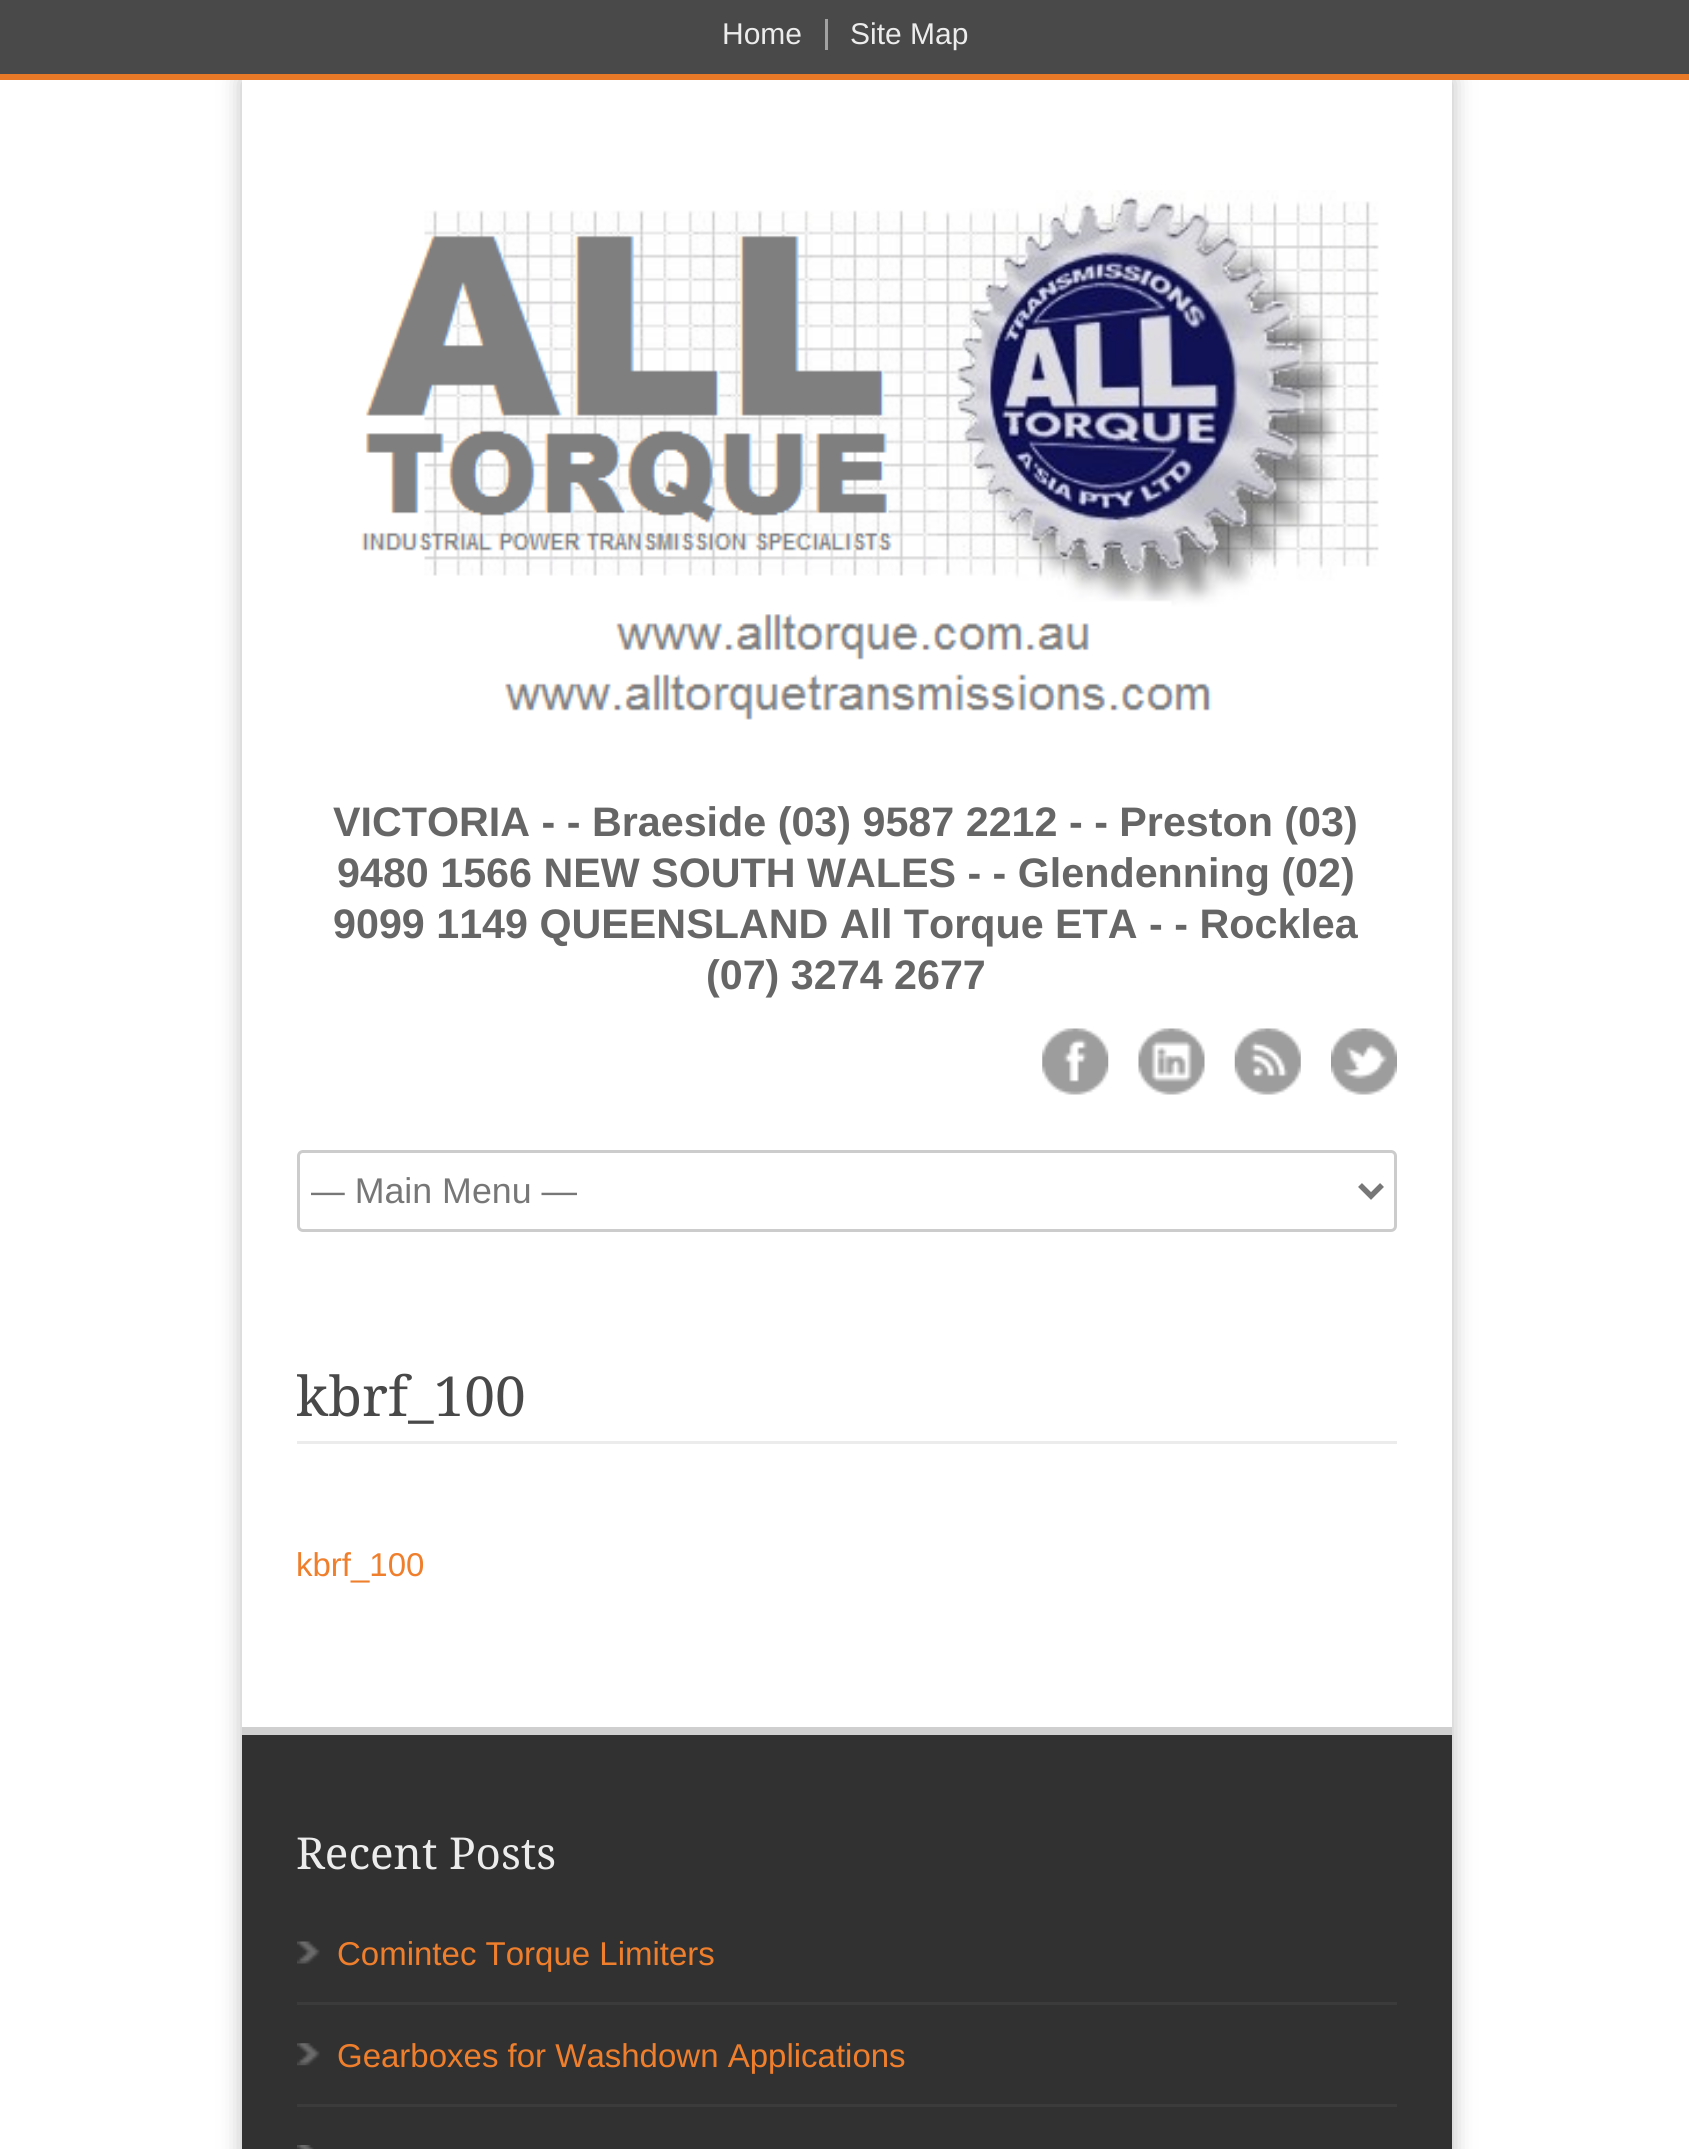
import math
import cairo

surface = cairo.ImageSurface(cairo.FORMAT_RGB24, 1689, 2149)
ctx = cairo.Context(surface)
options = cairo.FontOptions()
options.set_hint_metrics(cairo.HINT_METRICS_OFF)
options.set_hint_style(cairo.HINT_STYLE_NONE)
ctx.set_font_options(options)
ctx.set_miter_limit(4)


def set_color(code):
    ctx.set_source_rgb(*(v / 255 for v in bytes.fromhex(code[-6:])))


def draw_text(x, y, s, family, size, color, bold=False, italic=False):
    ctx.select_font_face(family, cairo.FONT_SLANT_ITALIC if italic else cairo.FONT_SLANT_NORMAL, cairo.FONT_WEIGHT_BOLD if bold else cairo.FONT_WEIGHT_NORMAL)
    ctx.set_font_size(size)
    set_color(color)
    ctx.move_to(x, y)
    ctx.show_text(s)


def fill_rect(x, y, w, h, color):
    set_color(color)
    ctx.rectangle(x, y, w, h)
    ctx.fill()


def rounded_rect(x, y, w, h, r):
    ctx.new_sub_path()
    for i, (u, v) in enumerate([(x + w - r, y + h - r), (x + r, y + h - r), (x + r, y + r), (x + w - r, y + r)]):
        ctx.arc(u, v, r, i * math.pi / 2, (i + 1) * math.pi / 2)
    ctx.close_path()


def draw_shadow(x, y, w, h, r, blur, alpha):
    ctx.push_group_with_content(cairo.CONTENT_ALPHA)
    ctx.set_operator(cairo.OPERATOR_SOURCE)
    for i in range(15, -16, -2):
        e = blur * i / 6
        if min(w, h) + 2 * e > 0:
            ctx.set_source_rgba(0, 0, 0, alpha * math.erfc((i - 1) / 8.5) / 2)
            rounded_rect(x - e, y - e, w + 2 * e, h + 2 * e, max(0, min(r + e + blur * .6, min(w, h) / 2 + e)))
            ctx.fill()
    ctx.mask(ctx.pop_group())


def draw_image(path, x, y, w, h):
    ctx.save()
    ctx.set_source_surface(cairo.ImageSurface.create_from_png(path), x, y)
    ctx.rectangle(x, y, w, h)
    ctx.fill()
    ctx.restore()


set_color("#ffffff")
ctx.paint()
ctx.save()
ctx.set_fill_rule(cairo.FILL_RULE_EVEN_ODD)
ctx.new_path()
ctx.move_to(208, 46)
ctx.line_to(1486, 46)
ctx.line_to(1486, 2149)
ctx.line_to(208, 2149)
ctx.close_path()
ctx.move_to(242, 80)
ctx.line_to(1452, 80)
ctx.line_to(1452, 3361)
ctx.line_to(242, 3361)
ctx.close_path()
ctx.clip()
set_color("#bbbbbb")
draw_shadow(242, 80, 1210, 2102, 0, 11, 1)
ctx.restore()
fill_rect(0, 0, 1689, 74, "#494949")
fill_rect(825, 19, 3, 31, "#a2a2a2")
draw_text(722, 44, "Home", "Liberation Sans", 30, "#ececec")
draw_text(850, 44, "Site Map", "Liberation Sans", 30, "#ececec")
fill_rect(0, 74, 1689, 6, "#e77927")
draw_image("assets/img1.png", 361, 190, 1018, 530)
draw_text(333, 836, "VICTORIA - - Braeside (03) 9587 2212 - - Preston (03)", "Liberation Sans", 41.25, "#666666", bold=True)
draw_text(337, 887, "9480 1566 NEW SOUTH WALES - - Glendenning (02)", "Liberation Sans", 41.25, "#666666", bold=True)
draw_text(333, 938, "9099 1149 QUEENSLAND All Torque ETA - - Rocklea", "Liberation Sans", 41.25, "#666666", bold=True)
draw_text(706, 989, "(07) 3274 2677", "Liberation Sans", 41.25, "#666666", bold=True)
draw_image("assets/img2.png", 1042, 1028, 67, 67)
draw_image("assets/img3.png", 1138, 1028, 67, 67)
draw_image("assets/img4.png", 1234, 1028, 67, 67)
draw_image("assets/img5.png", 1331, 1028, 66, 67)
rounded_rect(298.5, 1151.5, 1097, 79, 4.5)
set_color("#cccccc")
ctx.set_line_width(3)
ctx.stroke()
ctx.new_path()
ctx.move_to(1360, 1185)
ctx.line_to(1371, 1196)
ctx.line_to(1382, 1185)
set_color("#777777")
ctx.set_line_width(5.5)
ctx.stroke()
ctx.save()
ctx.rectangle(311, 1166, 1039, 47)
ctx.clip()
draw_text(309, 1203, "— Main Menu —", "Liberation Sans", 35.75, "#777777")
ctx.restore()
fill_rect(297, 1441, 1100, 3, "#ececec")
draw_text(296, 1416, "kbrf_100", "Droid Serif", 55, "#494949")
draw_text(296, 1576, "kbrf_100", "Liberation Sans", 33, "#ef7f2c")
fill_rect(242, 1735, 1210, 414, "#313131")
fill_rect(242, 1727, 1210, 8, "#cfcfcf")
draw_text(296, 1869, "Recent Posts", "Droid Serif", 44, "#ececec")
draw_image("assets/img6.png", 297, 1941, 23, 23)
fill_rect(297, 2002, 1100, 3, "#3b3b3b")
draw_text(337, 1965, "Comintec Torque Limiters", "Liberation Sans", 33, "#ef7f2c")
draw_image("assets/img7.png", 297, 2043, 23, 23)
fill_rect(297, 2104, 1100, 3, "#3b3b3b")
draw_text(337, 2067, "Gearboxes for Washdown Applications", "Liberation Sans", 33, "#ef7f2c")
draw_image("assets/img8.png", 297, 2145, 17, 4)
surface.write_to_png("output.png")
